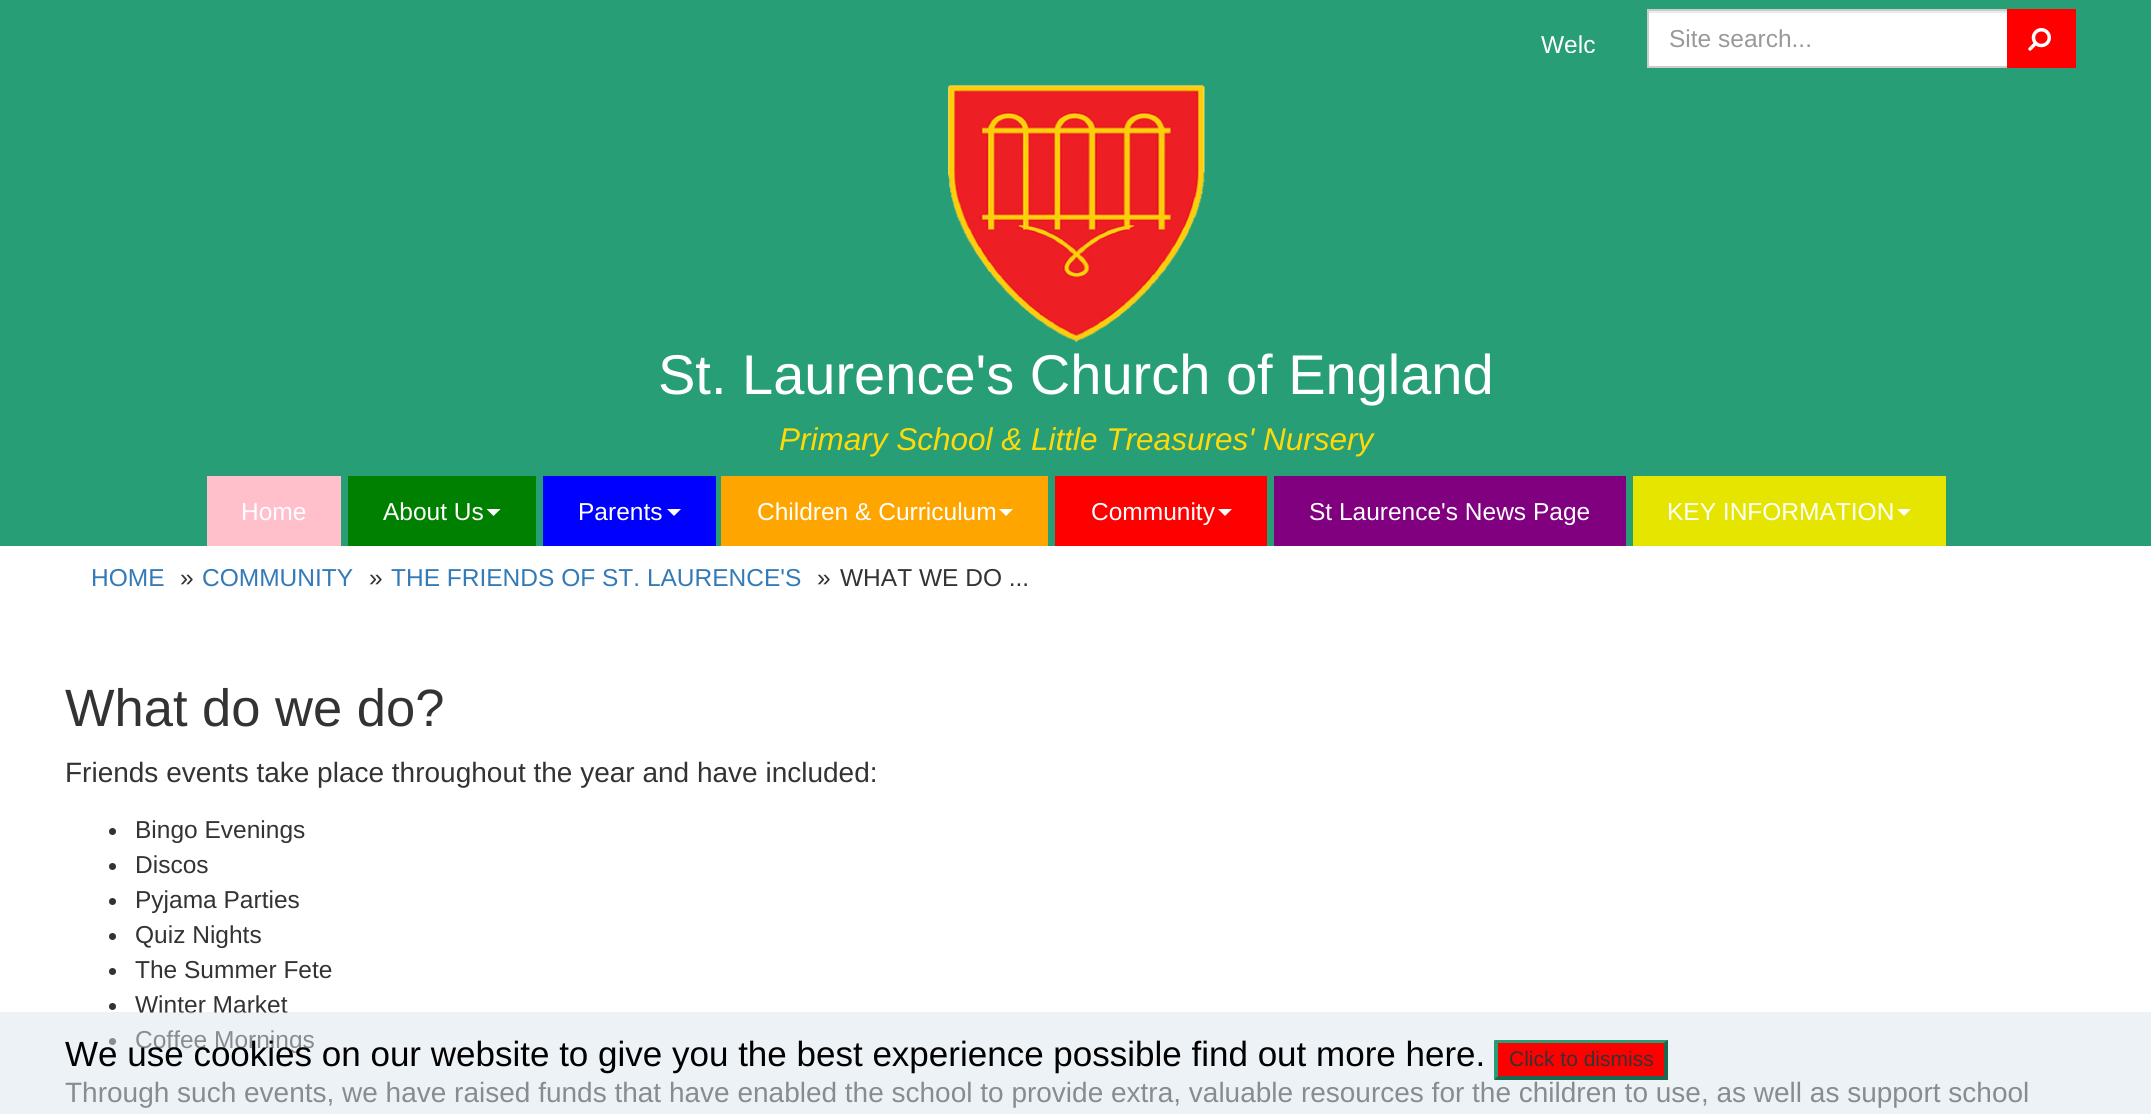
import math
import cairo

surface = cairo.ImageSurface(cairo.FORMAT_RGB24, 2151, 1114)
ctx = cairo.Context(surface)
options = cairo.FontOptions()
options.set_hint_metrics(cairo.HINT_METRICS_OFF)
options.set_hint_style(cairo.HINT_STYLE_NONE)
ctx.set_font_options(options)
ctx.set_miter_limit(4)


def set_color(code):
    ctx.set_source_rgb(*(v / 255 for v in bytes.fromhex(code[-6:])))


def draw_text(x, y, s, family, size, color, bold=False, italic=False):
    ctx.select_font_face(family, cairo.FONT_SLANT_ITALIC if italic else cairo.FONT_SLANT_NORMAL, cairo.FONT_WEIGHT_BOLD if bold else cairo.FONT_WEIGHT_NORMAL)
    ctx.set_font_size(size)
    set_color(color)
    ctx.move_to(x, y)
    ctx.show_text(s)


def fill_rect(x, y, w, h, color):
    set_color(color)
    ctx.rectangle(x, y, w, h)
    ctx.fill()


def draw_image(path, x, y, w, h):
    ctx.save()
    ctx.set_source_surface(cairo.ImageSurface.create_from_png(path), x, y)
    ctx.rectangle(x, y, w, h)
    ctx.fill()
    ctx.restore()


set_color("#ffffff")
ctx.paint()
fill_rect(0, 0, 2151, 546, "#279e76")
ctx.save()
ctx.rectangle(558, 0, 1038, 53)
ctx.clip()
draw_text(1541, 53, "Welc", "Liberation Sans", 24.5, "#ffffff")
ctx.restore()
fill_rect(1649, 13, 358, 53, "#ffffff")
fill_rect(1649, 11, 358, 2, "#ececec")
ctx.rectangle(1648, 10, 360, 57)
set_color("#cccccc")
ctx.stroke()
draw_text(1669, 47, "Site search...", "Liberation Sans", 24.5, "#999999")
fill_rect(2007, 9, 69, 59, "#ff0000")
draw_image("assets/img1.png", 2028, 28, 23, 23)
draw_image("assets/img2.png", 948, 85, 257, 257)
draw_text(658, 394, "St. Laurence's Church of England", "Liberation Sans", 56, "#ffffff")
draw_text(779, 450, "Primary School & Little Treasures' Nursery", "Liberation Sans", 31.5, "#feda0b", italic=True)
fill_rect(207, 476, 134, 70, "#ffc0cb")
draw_text(241, 520, "Home", "Liberation Sans", 24.5, "#ffffff")
fill_rect(348, 476, 188, 70, "#008000")
draw_text(383, 520, "About Us", "Liberation Sans", 24.5, "#ffffff")
ctx.new_path()
ctx.move_to(486.5, 509)
ctx.line_to(500.5, 509)
ctx.line_to(493.5, 516)
ctx.close_path()
ctx.fill()
fill_rect(543, 476, 173, 70, "#0000ff")
draw_text(578, 520, "Parents", "Liberation Sans", 24.5, "#ffffff")
ctx.new_path()
ctx.move_to(667, 509)
ctx.line_to(681, 509)
ctx.line_to(674, 516)
ctx.close_path()
ctx.fill()
fill_rect(721, 476, 327, 70, "#ffa500")
draw_text(757, 520, "Children & Curriculum", "Liberation Sans", 24.5, "#ffffff")
ctx.new_path()
ctx.move_to(999, 509)
ctx.line_to(1013, 509)
ctx.line_to(1006, 516)
ctx.close_path()
ctx.fill()
fill_rect(1055, 476, 212, 70, "#ff0000")
draw_text(1091, 520, "Community", "Liberation Sans", 24.5, "#ffffff")
ctx.new_path()
ctx.move_to(1218, 509)
ctx.line_to(1232, 509)
ctx.line_to(1225, 516)
ctx.close_path()
ctx.fill()
fill_rect(1274, 476, 352, 70, "#800080")
draw_text(1309, 520, "St Laurence's News Page", "Liberation Sans", 24.5, "#ffffff")
fill_rect(1633, 476, 313, 70, "#e5e500")
draw_text(1667, 520, "KEY INFORMATION", "Liberation Sans", 24.5, "#ffffff")
ctx.new_path()
ctx.move_to(1897, 509)
ctx.line_to(1911, 509)
ctx.line_to(1904, 516)
ctx.close_path()
ctx.fill()
draw_text(91, 586, "HOME", "Liberation Sans", 24.5, "#337ab7")
draw_text(180, 586, "»", "Liberation Sans", 24.5, "#333333")
draw_text(202, 586, "COMMUNITY", "Liberation Sans", 24.5, "#337ab7")
draw_text(369, 586, "»", "Liberation Sans", 24.5, "#333333")
draw_text(391, 586, "THE FRIENDS OF ST. LAURENCE'S", "Liberation Sans", 24.5, "#337ab7")
draw_text(817, 586, "»", "Liberation Sans", 24.5, "#333333")
draw_text(840, 586, "WHAT WE DO ...", "Liberation Sans", 24.5, "#333333")
draw_text(65, 726, "What do we do?", "Liberation Sans", 52.5, "#333333")
draw_text(65, 782, "Friends events take place throughout the year and have included:", "Liberation Sans", 28, "#333333")
ctx.new_path()
ctx.arc(112.5, 831.5, 3.5, 0, 2 * math.pi)
ctx.fill()
draw_text(135, 838, "Bingo Evenings", "Liberation Sans", 24.5, "#333333")
ctx.new_path()
ctx.arc(112.5, 866.5, 3.5, 0, 2 * math.pi)
ctx.fill()
draw_text(135, 873, "Discos", "Liberation Sans", 24.5, "#333333")
ctx.new_path()
ctx.arc(112.5, 901.5, 3.5, 0, 2 * math.pi)
ctx.fill()
draw_text(135, 908, "Pyjama Parties", "Liberation Sans", 24.5, "#333333")
ctx.new_path()
ctx.arc(112.5, 936.5, 3.5, 0, 2 * math.pi)
ctx.fill()
draw_text(135, 943, "Quiz Nights", "Liberation Sans", 24.5, "#333333")
ctx.new_path()
ctx.arc(112.5, 971.5, 3.5, 0, 2 * math.pi)
ctx.fill()
draw_text(135, 978, "The Summer Fete", "Liberation Sans", 24.5, "#333333")
ctx.new_path()
ctx.arc(112.5, 1006.5, 3.5, 0, 2 * math.pi)
ctx.fill()
draw_text(135, 1013, "Winter Market", "Liberation Sans", 24.5, "#333333")
ctx.new_path()
ctx.arc(112.5, 1041.5, 3.5, 0, 2 * math.pi)
ctx.fill()
draw_text(135, 1048, "Coffee Mornings", "Liberation Sans", 24.5, "#333333")
draw_text(65, 1102, "Through such events, we have raised funds that have enabled the school to provide extra, valuable resources for the children to use, as well as support school", "Liberation Sans", 28, "#333333")
ctx.set_source_rgba(0.863, 0.906, 0.933, 0.5)
ctx.rectangle(0, 1012, 2151, 102)
ctx.fill()
draw_text(65, 1066, "We use cookies on our website to give you the best experience possible find out more here.", "Liberation Sans", 35, "#000000")
fill_rect(1495, 1040, 173, 40, "#ff0000")
set_color("#279e76")
ctx.new_path()
ctx.move_to(1494, 1040)
ctx.line_to(1668, 1040)
ctx.line_to(1664, 1043)
ctx.line_to(1498, 1043)
ctx.close_path()
ctx.fill()
set_color("#1a694f")
ctx.new_path()
ctx.move_to(1668, 1040)
ctx.line_to(1668, 1080)
ctx.line_to(1664, 1076)
ctx.line_to(1664, 1043)
ctx.close_path()
ctx.fill()
ctx.new_path()
ctx.move_to(1668, 1080)
ctx.line_to(1494, 1080)
ctx.line_to(1498, 1076)
ctx.line_to(1664, 1076)
ctx.close_path()
ctx.fill()
set_color("#279e76")
ctx.new_path()
ctx.move_to(1494, 1080)
ctx.line_to(1494, 1040)
ctx.line_to(1498, 1043)
ctx.line_to(1498, 1076)
ctx.close_path()
ctx.fill()
draw_text(1509, 1066, "Click to dismiss", "Liberation Sans", 21, "#333333")
surface.write_to_png("output.png")
